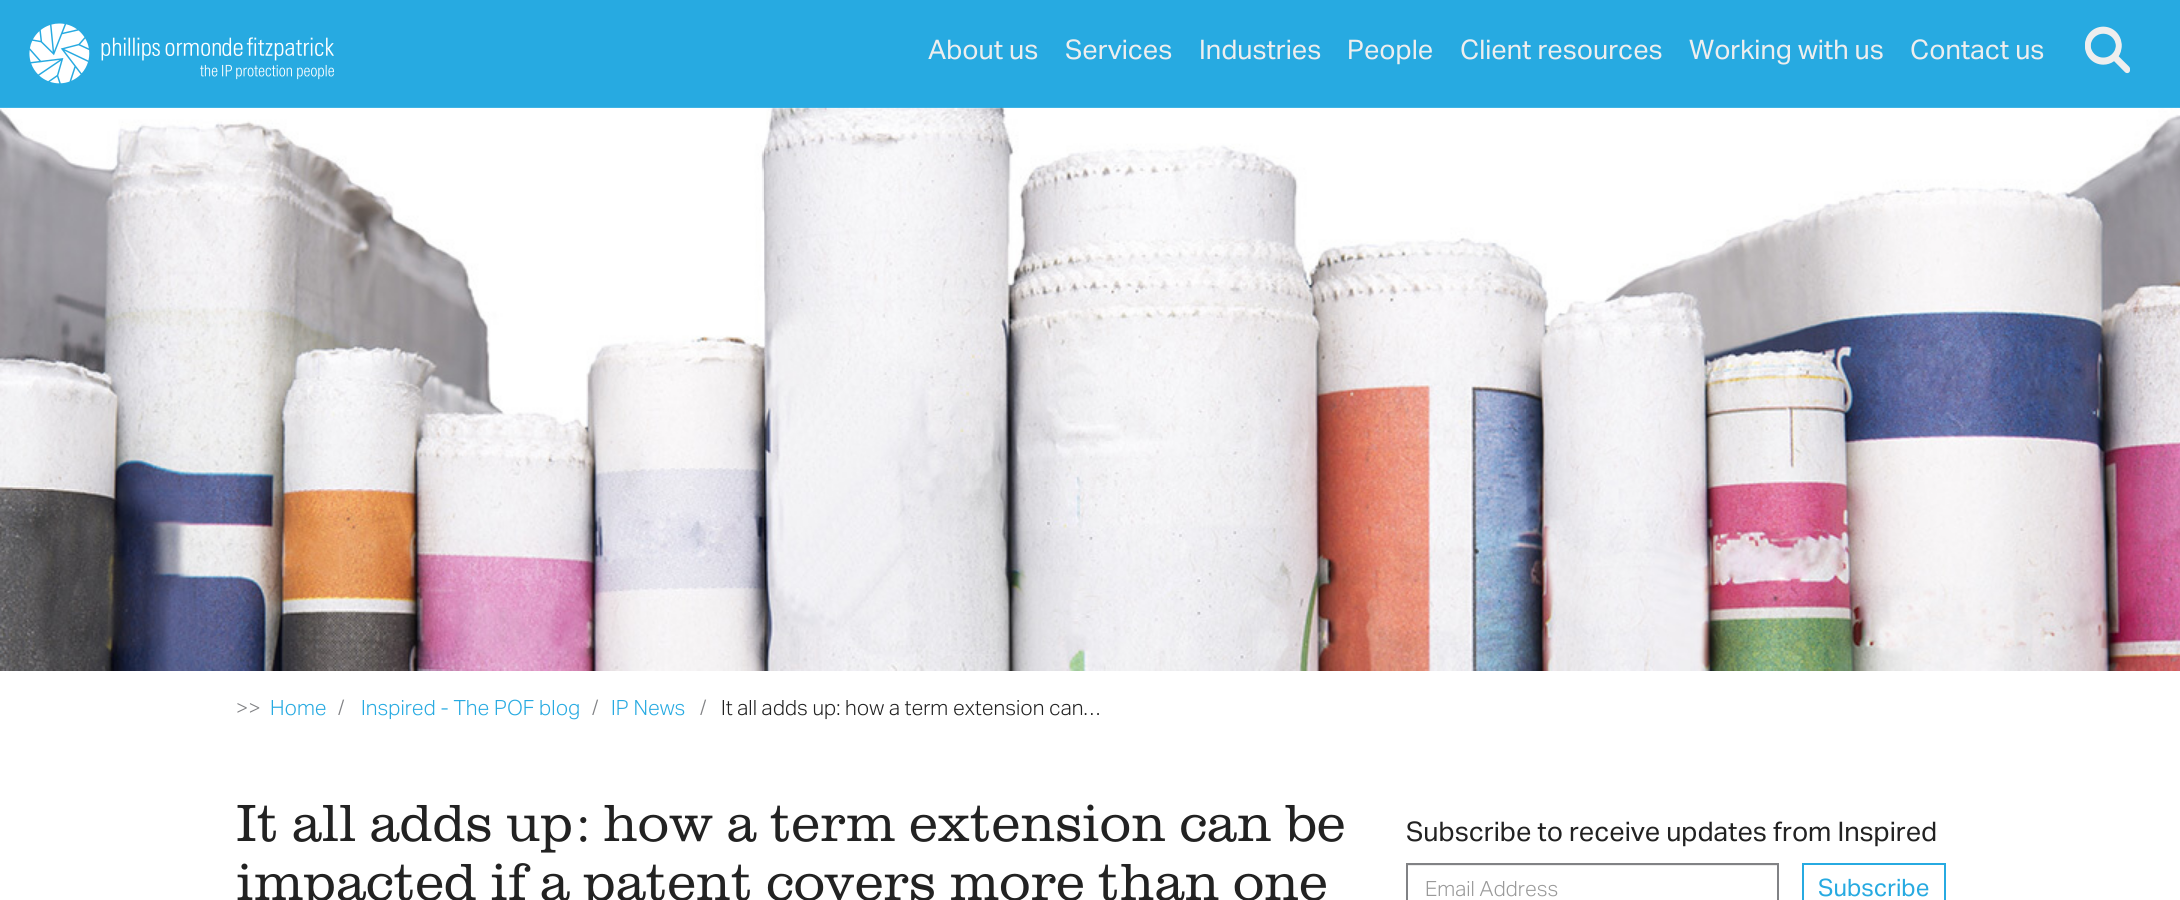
import math
import cairo

surface = cairo.ImageSurface(cairo.FORMAT_RGB24, 2180, 900)
ctx = cairo.Context(surface)
options = cairo.FontOptions()
options.set_hint_metrics(cairo.HINT_METRICS_OFF)
options.set_hint_style(cairo.HINT_STYLE_NONE)
ctx.set_font_options(options)
ctx.set_miter_limit(4)


def set_color(code):
    ctx.set_source_rgb(*(v / 255 for v in bytes.fromhex(code[-6:])))


def draw_text(x, y, s, family, size, color, bold=False, italic=False):
    ctx.select_font_face(family, cairo.FONT_SLANT_ITALIC if italic else cairo.FONT_SLANT_NORMAL, cairo.FONT_WEIGHT_BOLD if bold else cairo.FONT_WEIGHT_NORMAL)
    ctx.set_font_size(size)
    set_color(color)
    ctx.move_to(x, y)
    ctx.show_text(s)


def fill_rect(x, y, w, h, color):
    set_color(color)
    ctx.rectangle(x, y, w, h)
    ctx.fill()


def draw_image(path, x, y, w, h):
    ctx.save()
    ctx.set_source_surface(cairo.ImageSurface.create_from_png(path), x, y)
    ctx.rectangle(x, y, w, h)
    ctx.fill()
    ctx.restore()


set_color("#ffffff")
ctx.paint()
fill_rect(0, 0, 2180, 108, "#27aae1")
draw_image("assets/img1.png", 29, 23, 305, 61)
draw_text(928, 59, "About us", "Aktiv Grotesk", 27, "#eeeeee")
draw_text(1065, 59, "Services", "Aktiv Grotesk", 27, "#eeeeee")
draw_text(1199, 59, "Industries", "Aktiv Grotesk", 27, "#eeeeee")
draw_text(1347, 59, "People", "Aktiv Grotesk", 27, "#eeeeee")
draw_text(1460, 59, "Client resources", "Aktiv Grotesk", 27, "#eeeeee")
draw_text(1689, 59, "Working with us", "Aktiv Grotesk", 27, "#eeeeee")
draw_text(1910, 59, "Contact us", "Aktiv Grotesk", 27, "#eeeeee")
draw_image("assets/img2.png", 2085, 26, 45, 45)
draw_image("assets/img3.png", 2085, 32, 45, 42)
draw_image("assets/img4.png", 0, 107, 2180, 564)
draw_text(236, 715, ">>", "Aktiv Grotesk Light", 21, "#818285")
draw_text(270, 715, "Home", "Aktiv Grotesk Light", 21, "#27aae1")
draw_text(338, 715, "/", "Aktiv Grotesk Light", 21, "#818285")
draw_text(361, 715, "Inspired - The POF blog", "Aktiv Grotesk Light", 21, "#27aae1")
draw_text(592, 715, "/", "Aktiv Grotesk Light", 21, "#818285")
draw_text(611, 715, "IP News", "Aktiv Grotesk Light", 21, "#27aae1")
draw_text(700, 715, "/", "Aktiv Grotesk Light", 21, "#818285")
draw_text(721, 715, "It all adds up: how a term extension can…", "Aktiv Grotesk Light", 21, "#222222")
draw_text(236, 841, "It all adds up: how a term extension can be", "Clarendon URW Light", 54, "#222222")
draw_text(236, 900, "impacted if a patent covers more than one", "Clarendon URW Light", 54, "#222222")
draw_text(1406, 841, "Subscribe to receive updates from Inspired", "Aktiv Grotesk", 27, "#222222")
fill_rect(1407, 865, 371, 1, "#ececec")
ctx.rectangle(1407, 864, 371, 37)
set_color("#818285")
ctx.stroke()
draw_text(1425, 896, "Email Address", "Aktiv Grotesk Light", 21, "#999999")
ctx.rectangle(1803, 864, 142, 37)
set_color("#27aae1")
ctx.stroke()
draw_text(1818, 896, "Subscribe", "Aktiv Grotesk", 24, "#27aae1")
surface.write_to_png("output.png")
